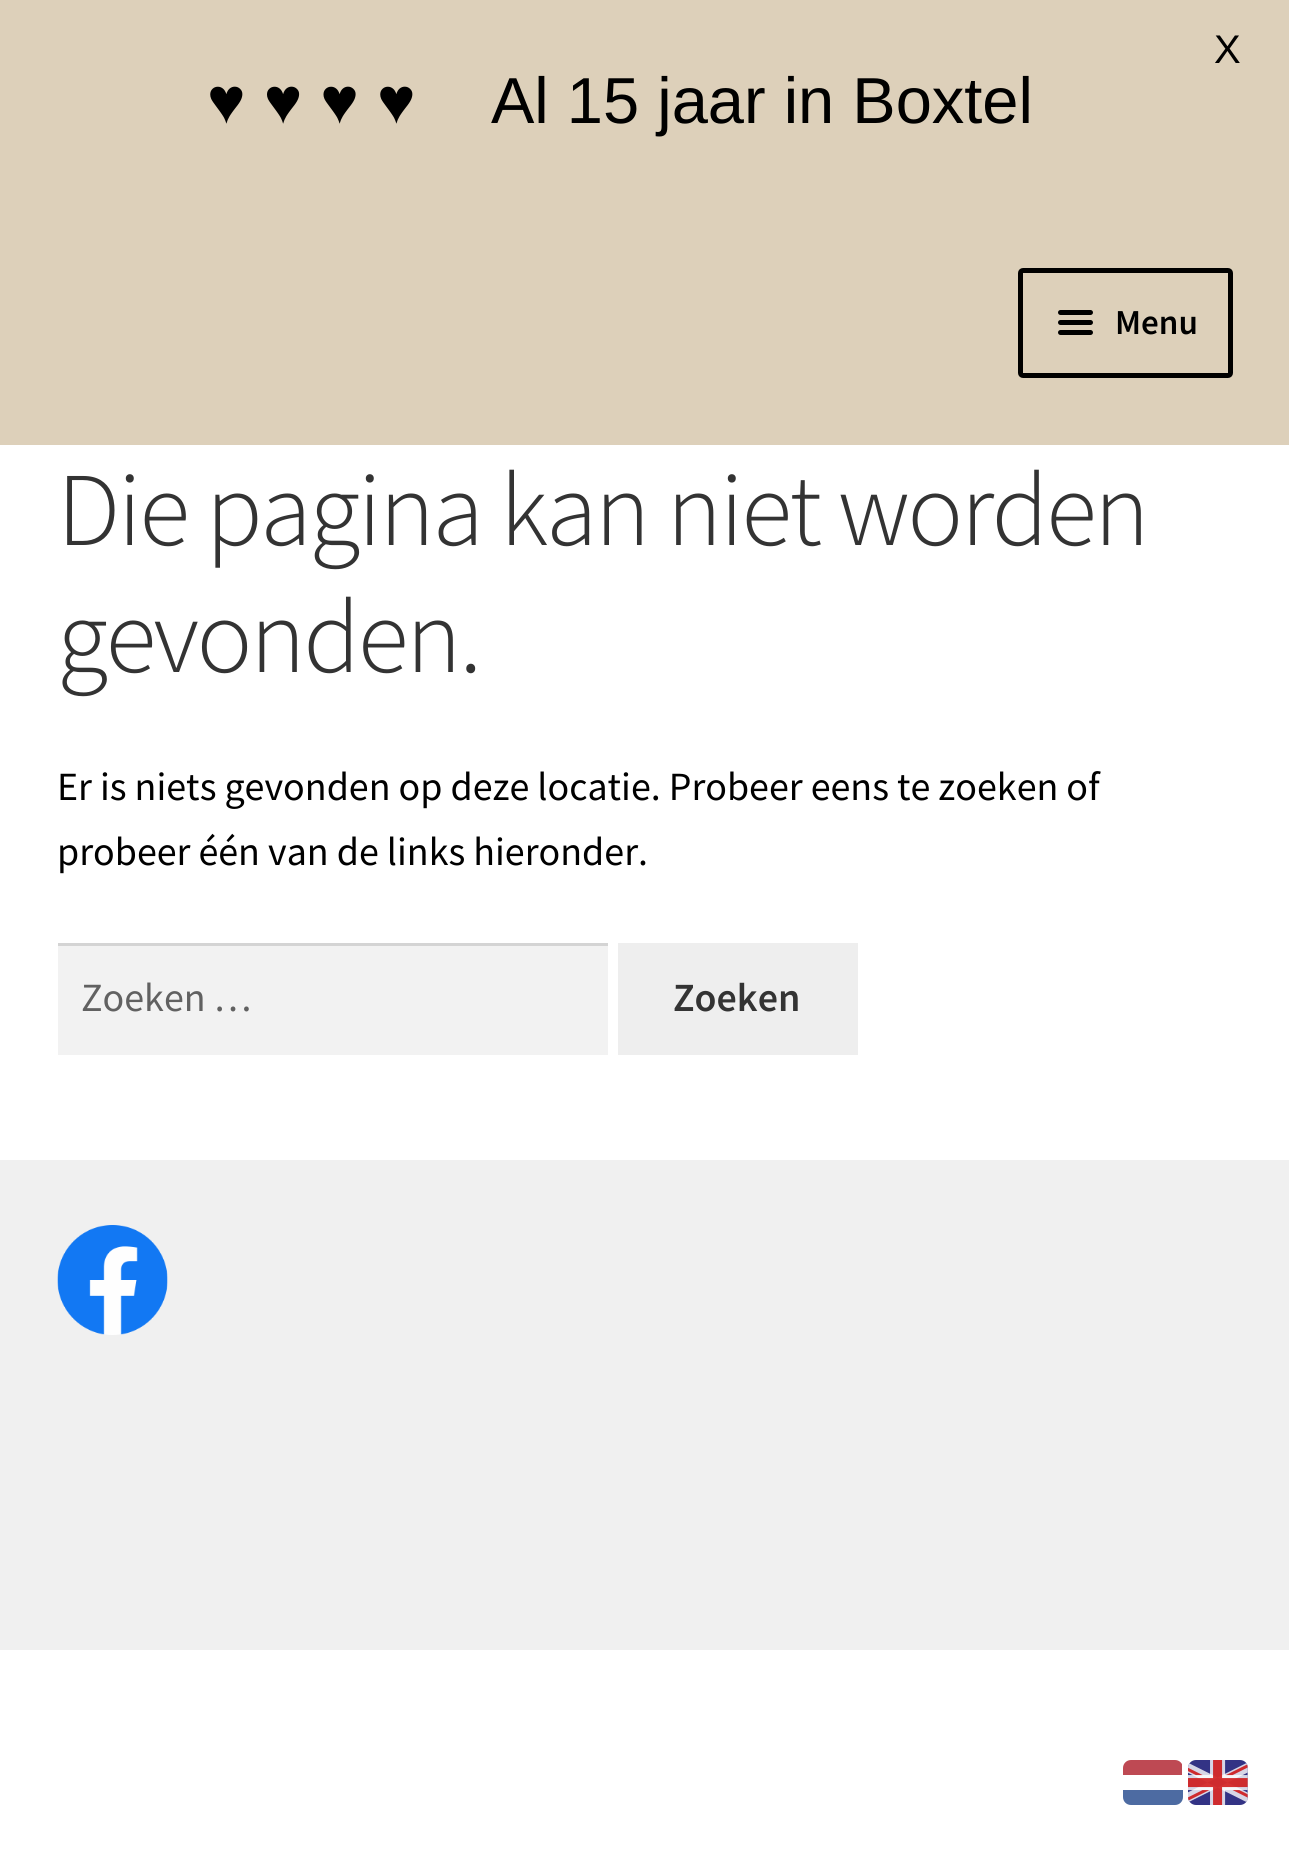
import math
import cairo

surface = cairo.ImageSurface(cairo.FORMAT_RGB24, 1289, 1850)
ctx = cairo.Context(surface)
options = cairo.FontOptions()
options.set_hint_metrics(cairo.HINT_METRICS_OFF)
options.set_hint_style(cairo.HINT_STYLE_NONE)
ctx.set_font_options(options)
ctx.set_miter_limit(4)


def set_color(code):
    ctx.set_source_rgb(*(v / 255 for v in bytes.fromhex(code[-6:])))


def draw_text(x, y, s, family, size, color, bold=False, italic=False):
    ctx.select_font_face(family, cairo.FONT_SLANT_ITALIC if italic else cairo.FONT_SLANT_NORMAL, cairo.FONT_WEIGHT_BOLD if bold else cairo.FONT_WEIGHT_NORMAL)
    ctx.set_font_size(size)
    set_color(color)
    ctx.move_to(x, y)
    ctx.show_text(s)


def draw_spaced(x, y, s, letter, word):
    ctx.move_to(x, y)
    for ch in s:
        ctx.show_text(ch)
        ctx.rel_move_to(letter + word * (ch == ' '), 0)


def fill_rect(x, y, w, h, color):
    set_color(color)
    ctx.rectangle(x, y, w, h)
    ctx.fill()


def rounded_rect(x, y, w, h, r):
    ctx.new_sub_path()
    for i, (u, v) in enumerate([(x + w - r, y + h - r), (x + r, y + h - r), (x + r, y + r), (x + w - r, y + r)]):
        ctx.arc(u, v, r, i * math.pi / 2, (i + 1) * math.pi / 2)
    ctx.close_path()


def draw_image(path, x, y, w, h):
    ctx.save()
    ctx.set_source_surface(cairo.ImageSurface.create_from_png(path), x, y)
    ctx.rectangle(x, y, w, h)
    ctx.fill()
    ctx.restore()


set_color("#ffffff")
ctx.paint()
fill_rect(0, 0, 1289, 445, "#ddd0ba")
draw_text(1214, 63, "X", "Liberation Sans", 40, "#000000")
draw_text(207, 123, "♥ ♥ ♥ ♥", "Liberation Sans", 65, "#000000", bold=True)
draw_text(491, 123, "Al 15 jaar in Boxtel", "Liberation Sans", 65, "#000000")
rounded_rect(1020.5, 270.5, 210, 105, 2.5)
ctx.set_line_width(5)
ctx.stroke()
rounded_rect(1058, 310, 35, 5, 2.5)
ctx.fill()
rounded_rect(1058, 320, 35, 5, 2.5)
ctx.fill()
draw_text(1115, 334, "Menu", "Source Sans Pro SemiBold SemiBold", 35, "#000000")
rounded_rect(1058, 330, 35, 5, 2.5)
ctx.fill()
ctx.select_font_face("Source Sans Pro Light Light")
ctx.set_font_size(104.75)
set_color("#333333")
draw_spaced(57, 545, "Die pagina kan niet worden", -2.5, 0)
draw_spaced(57, 672, "gevonden.", -2.5, 0)
draw_text(57, 800, "Er is niets gevonden op deze locatie. Probeer eens te zoeken of", "Source Sans Pro", 40, "#000000")
draw_text(57, 865, "probeer één van de links hieronder.", "Source Sans Pro", 40, "#000000")
fill_rect(58, 946, 550, 109, "#f2f2f2")
fill_rect(58, 943, 550, 3, "#d4d4d4")
draw_text(81, 1011, "Zoeken …", "Source Sans Pro", 40, "#616161")
fill_rect(618, 943, 240, 112, "#eeeeee")
draw_text(673, 1011, "Zoeken", "Source Sans Pro SemiBold SemiBold", 40, "#333333")
fill_rect(0, 1160, 1289, 490, "#f0f0f0")
draw_image("assets/img1.png", 57, 1225, 111, 110)
ctx.save()
rounded_rect(1123, 1760, 60, 45, 8)
ctx.clip()
set_color("#be4953")
ctx.new_path()
ctx.move_to(1131, 1760)
ctx.line_to(1182, 1760)
ctx.line_to(1182, 1775)
ctx.line_to(1123, 1775)
ctx.line_to(1123, 1768)
ctx.curve_to(1123, 1763.5, 1126.5, 1760, 1131, 1760)
ctx.close_path()
ctx.fill()
ctx.restore()
draw_image("assets/img2.png", 1188, 1760, 60, 45)
set_color("#4d6ba2")
ctx.new_path()
ctx.move_to(1123, 1790)
ctx.line_to(1183, 1790)
ctx.line_to(1183, 1797)
ctx.curve_to(1183, 1801.5, 1179.5, 1805, 1175, 1805)
ctx.line_to(1131, 1805)
ctx.curve_to(1126.5, 1805, 1123, 1801.5, 1123, 1797)
ctx.close_path()
ctx.fill()
surface.write_to_png("output.png")
